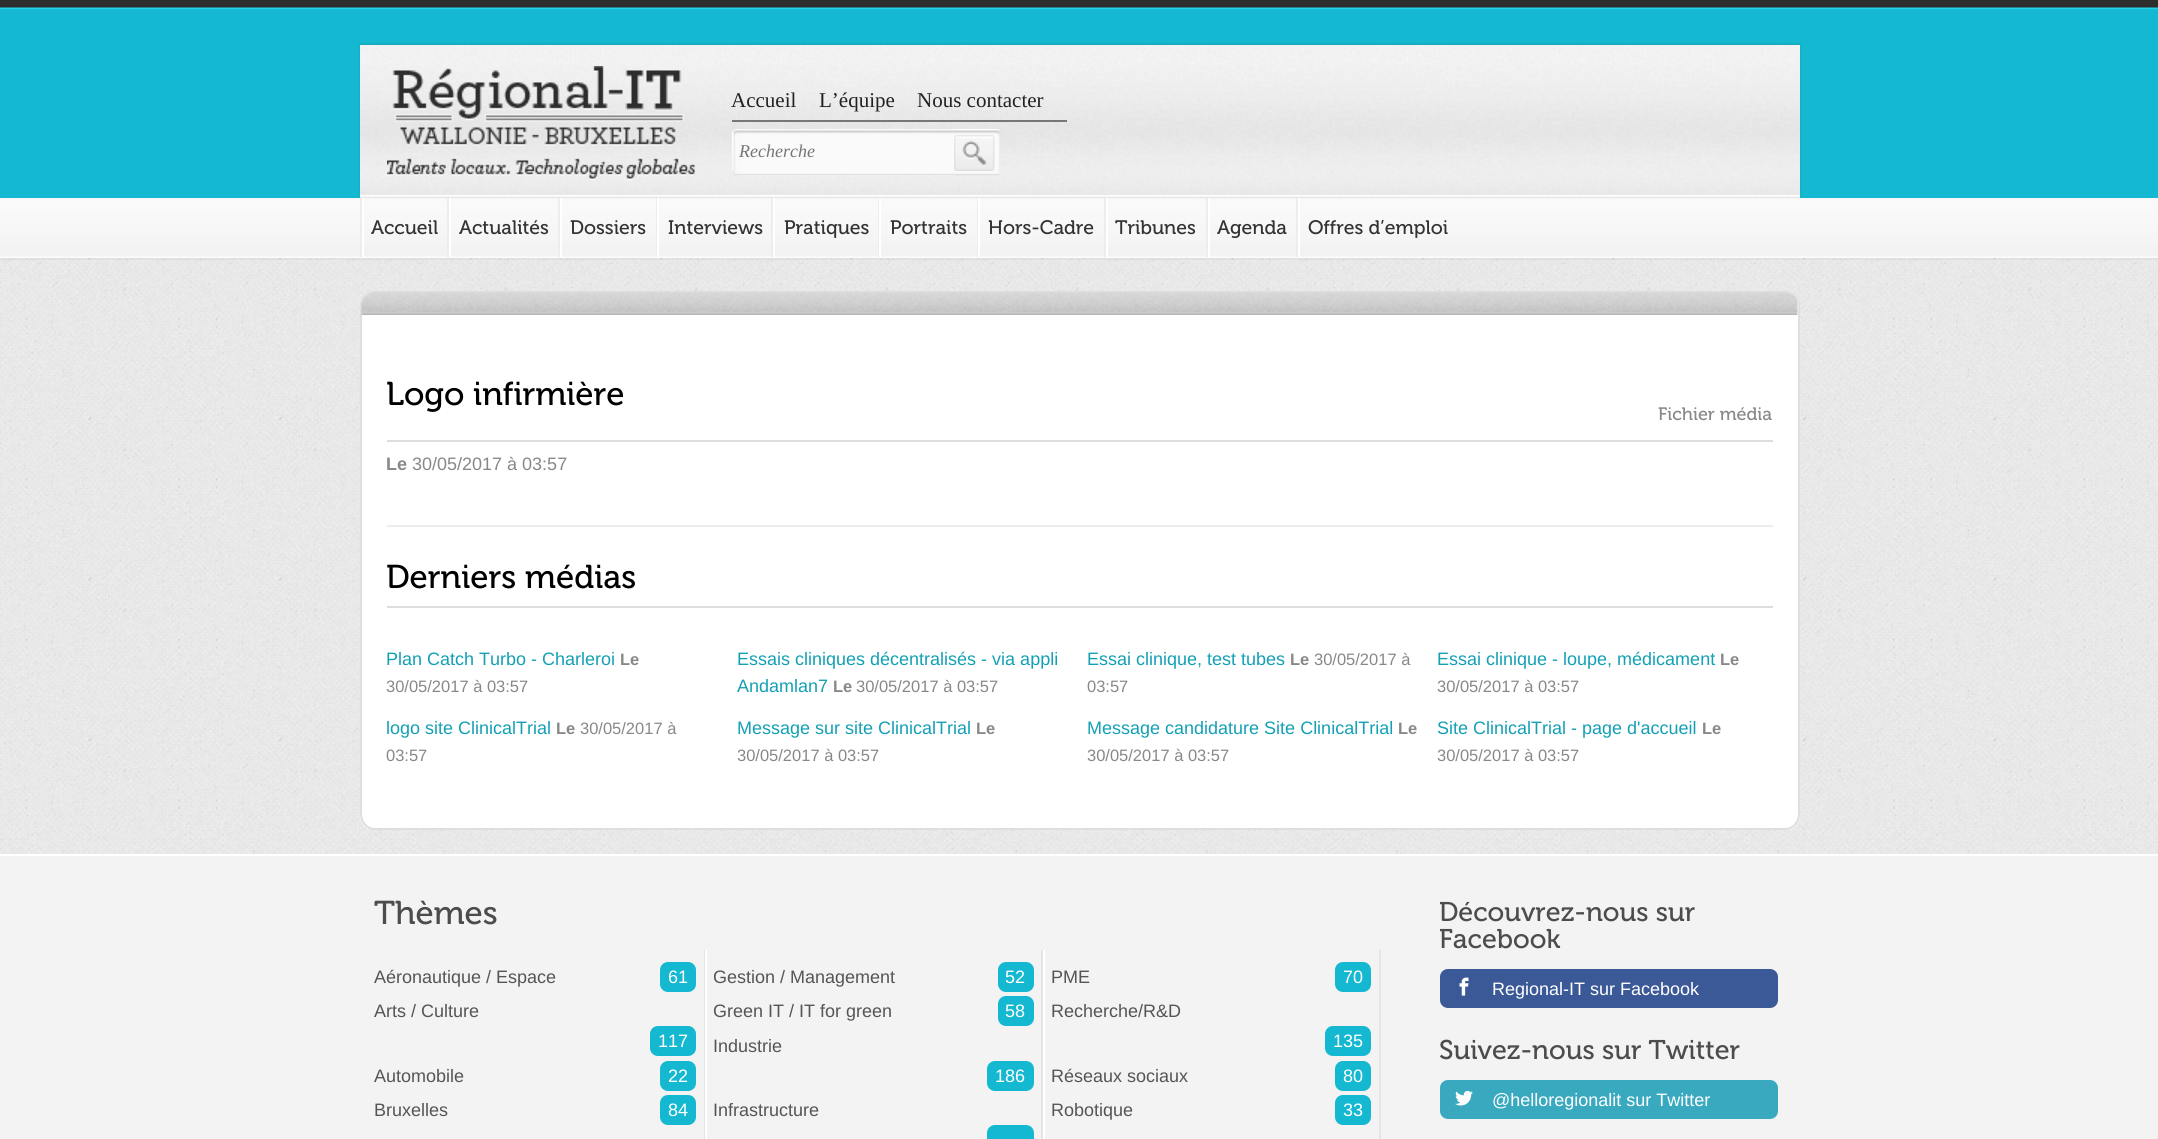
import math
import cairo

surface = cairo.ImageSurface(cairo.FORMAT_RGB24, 2158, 1139)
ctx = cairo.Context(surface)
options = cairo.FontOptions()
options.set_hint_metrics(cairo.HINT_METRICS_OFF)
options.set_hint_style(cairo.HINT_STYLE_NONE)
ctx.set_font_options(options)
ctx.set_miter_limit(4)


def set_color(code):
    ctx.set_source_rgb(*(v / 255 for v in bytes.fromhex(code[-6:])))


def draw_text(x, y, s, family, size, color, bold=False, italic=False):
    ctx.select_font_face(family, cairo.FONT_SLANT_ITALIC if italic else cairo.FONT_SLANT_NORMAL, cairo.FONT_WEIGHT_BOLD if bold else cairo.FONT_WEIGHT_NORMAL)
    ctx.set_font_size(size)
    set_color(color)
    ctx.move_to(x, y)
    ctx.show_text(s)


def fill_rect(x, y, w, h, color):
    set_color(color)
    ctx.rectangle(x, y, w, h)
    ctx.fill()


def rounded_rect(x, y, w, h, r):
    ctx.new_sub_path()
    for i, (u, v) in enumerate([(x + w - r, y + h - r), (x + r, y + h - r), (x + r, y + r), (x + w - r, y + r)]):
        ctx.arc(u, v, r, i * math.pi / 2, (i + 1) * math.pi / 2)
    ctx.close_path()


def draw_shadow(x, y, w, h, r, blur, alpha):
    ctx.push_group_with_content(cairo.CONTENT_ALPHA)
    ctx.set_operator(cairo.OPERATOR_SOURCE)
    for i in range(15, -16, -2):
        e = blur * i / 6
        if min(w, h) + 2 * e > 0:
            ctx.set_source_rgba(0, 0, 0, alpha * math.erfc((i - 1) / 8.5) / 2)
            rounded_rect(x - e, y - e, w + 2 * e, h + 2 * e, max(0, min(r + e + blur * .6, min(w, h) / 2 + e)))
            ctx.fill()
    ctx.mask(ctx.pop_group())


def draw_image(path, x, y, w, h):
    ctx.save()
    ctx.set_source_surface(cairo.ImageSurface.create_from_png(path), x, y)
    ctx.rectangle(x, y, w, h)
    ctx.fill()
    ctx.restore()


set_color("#ffffff")
ctx.paint()
draw_image("assets/img1.png", 0, 198, 2158, 656)
fill_rect(0, 8, 2158, 190, "#14b8d0")
draw_image("assets/img2.png", 0, 0, 2158, 10)
set_color("#12a4b9")
draw_shadow(360, 44, 1440, 153, 0, 1, 1)
fill_rect(360, 196, 1440, 1, "#f3f3f3")
draw_image("assets/img3.png", 360, 45, 1440, 152)
fill_rect(360, 197, 1440, 2, "#e6e6e6")
draw_image("assets/img4.png", 387, 66, 308, 114)
fill_rect(732, 120, 335, 2, "#777777")
draw_text(731, 107, "Accueil", "Liberation Serif", 21, "#222222")
draw_text(819, 107, "L’équipe", "Liberation Serif", 21, "#222222")
draw_text(917, 107, "Nous contacter", "Liberation Serif", 21, "#222222")
draw_image("assets/img5.png", 732, 129, 8, 47)
draw_image("assets/img6.png", 739, 129, 218, 46)
draw_text(739, 157, "Recherche", "Liberation Serif", 18, "#757575", italic=True)
draw_image("assets/img7.png", 956, 129, 44, 47)
draw_image("assets/img8.png", 954, 135, 41, 36)
draw_image("assets/img9.png", 0, 198, 2158, 62)
fill_rect(360, 198, 2, 59, "#ededed")
fill_rect(362, 198, 2, 59, "#ffffff")
draw_text(371, 234, "Accueil", "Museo", 19.5, "#333333")
fill_rect(447, 198, 2, 59, "#ededed")
fill_rect(449, 198, 2, 59, "#ffffff")
draw_text(459, 234, "Actualités", "Museo", 19.5, "#333333")
fill_rect(558, 198, 2, 59, "#ededed")
fill_rect(560, 198, 2, 59, "#ffffff")
draw_text(570, 234, "Dossiers", "Museo", 19.5, "#333333")
fill_rect(656, 198, 1, 59, "#ededed")
fill_rect(657, 198, 2, 59, "#ffffff")
draw_text(668, 234, "Interviews", "Museo", 19.5, "#333333")
fill_rect(771, 198, 2, 59, "#ededed")
fill_rect(773, 198, 2, 59, "#ffffff")
draw_text(784, 234, "Pratiques", "Museo", 19.5, "#333333")
fill_rect(878, 198, 1, 59, "#ededed")
fill_rect(879, 198, 2, 59, "#ffffff")
draw_text(890, 234, "Portraits", "Museo", 19.5, "#333333")
fill_rect(977, 198, 1, 59, "#ededed")
fill_rect(978, 198, 2, 59, "#ffffff")
draw_text(988, 234, "Hors-Cadre", "Museo", 19.5, "#333333")
fill_rect(1104, 198, 2, 59, "#ededed")
fill_rect(1106, 198, 2, 59, "#ffffff")
draw_text(1115, 234, "Tribunes", "Museo", 19.5, "#333333")
fill_rect(1206, 198, 2, 59, "#ededed")
fill_rect(1208, 198, 2, 59, "#ffffff")
draw_text(1217, 234, "Agenda", "Museo", 19.5, "#333333")
fill_rect(1296, 198, 2, 59, "#ededed")
fill_rect(1298, 198, 2, 59, "#ffffff")
draw_text(1308, 234, "Offres d’emploi", "Museo", 19.5, "#333333")
draw_image("assets/img10.png", 360, 291, 1440, 24)
set_color("#ffffff")
ctx.new_path()
ctx.move_to(360, 315)
ctx.line_to(1800, 315)
ctx.line_to(1800, 815)
ctx.curve_to(1800, 823.5, 1793.5, 830, 1785, 830)
ctx.line_to(375, 830)
ctx.curve_to(366.5, 830, 360, 823.5, 360, 815)
ctx.close_path()
ctx.fill()
set_color("#dedede")
ctx.set_fill_rule(cairo.FILL_RULE_EVEN_ODD)
ctx.new_path()
ctx.move_to(360, 315)
ctx.line_to(1800, 315)
ctx.line_to(1800, 814)
ctx.curve_to(1800, 823, 1793, 830, 1785, 830)
ctx.line_to(375, 830)
ctx.curve_to(367, 830, 360, 823, 360, 814)
ctx.close_path()
ctx.move_to(362, 315)
ctx.line_to(1798, 315)
ctx.line_to(1798, 814)
ctx.curve_to(1798, 822, 1792, 828, 1785, 828)
ctx.line_to(375, 828)
ctx.curve_to(368, 828, 362, 822, 362, 814)
ctx.close_path()
ctx.fill()
fill_rect(387, 525, 1386, 2, "#ededed")
fill_rect(387, 440, 1386, 2, "#dedede")
draw_text(386, 405, "Logo infirmière", "Museo", 33, "#000000")
draw_text(1658, 420, "Fichier média", "Museo", 18, "#888888")
draw_text(386, 470, "Le", "Liberation Sans", 18, "#888888", bold=True)
draw_text(412, 470, "30/05/2017 à 03:57", "Liberation Sans", 18, "#888888")
fill_rect(387, 606, 1386, 2, "#dedede")
draw_text(386, 588, "Derniers médias", "Museo", 33, "#000000")
draw_text(386, 665, "Plan Catch Turbo - Charleroi", "Liberation Sans", 18, "#13a0b5")
draw_text(620, 665, "Le", "Liberation Sans", 16.5, "#888888", bold=True)
draw_text(386, 692, "30/05/2017 à 03:57", "Liberation Sans", 16.5, "#888888")
draw_text(737, 665, "Essais cliniques décentralisés - via appli", "Liberation Sans", 18, "#13a0b5")
draw_text(737, 692, "Andamlan7", "Liberation Sans", 18, "#13a0b5")
draw_text(833, 692, "Le", "Liberation Sans", 16.5, "#888888", bold=True)
draw_text(856, 692, "30/05/2017 à 03:57", "Liberation Sans", 16.5, "#888888")
draw_text(1087, 665, "Essai clinique, test tubes", "Liberation Sans", 18, "#13a0b5")
draw_text(1290, 665, "Le", "Liberation Sans", 16.5, "#888888", bold=True)
draw_text(1314, 665, "30/05/2017 à", "Liberation Sans", 16.5, "#888888")
draw_text(1087, 692, "03:57", "Liberation Sans", 16.5, "#888888")
draw_text(1437, 665, "Essai clinique - loupe, médicament", "Liberation Sans", 18, "#13a0b5")
draw_text(1720, 665, "Le", "Liberation Sans", 16.5, "#888888", bold=True)
draw_text(1437, 692, "30/05/2017 à 03:57", "Liberation Sans", 16.5, "#888888")
draw_text(386, 734, "logo site ClinicalTrial", "Liberation Sans", 18, "#13a0b5")
draw_text(556, 734, "Le", "Liberation Sans", 16.5, "#888888", bold=True)
draw_text(580, 734, "30/05/2017 à", "Liberation Sans", 16.5, "#888888")
draw_text(386, 761, "03:57", "Liberation Sans", 16.5, "#888888")
draw_text(737, 734, "Message sur site ClinicalTrial", "Liberation Sans", 18, "#13a0b5")
draw_text(976, 734, "Le", "Liberation Sans", 16.5, "#888888", bold=True)
draw_text(737, 761, "30/05/2017 à 03:57", "Liberation Sans", 16.5, "#888888")
draw_text(1087, 734, "Message candidature Site ClinicalTrial", "Liberation Sans", 18, "#13a0b5")
draw_text(1398, 734, "Le", "Liberation Sans", 16.5, "#888888", bold=True)
draw_text(1087, 761, "30/05/2017 à 03:57", "Liberation Sans", 16.5, "#888888")
draw_text(1437, 734, "Site ClinicalTrial - page d'accueil", "Liberation Sans", 18, "#13a0b5")
draw_text(1702, 734, "Le", "Liberation Sans", 16.5, "#888888", bold=True)
draw_text(1437, 761, "30/05/2017 à 03:57", "Liberation Sans", 16.5, "#888888")
fill_rect(0, 856, 2158, 283, "#f3f3f3")
draw_text(374, 924, "Thèmes", "Museo", 33, "#4c4c4c")
draw_text(1439, 921, "Découvrez-nous sur", "Museo", 27, "#4c4c4c")
draw_text(1439, 948, "Facebook", "Museo", 27, "#4c4c4c")
set_color("#3b5997")
rounded_rect(1440, 969, 338, 39, 8)
ctx.fill()
draw_image("assets/img11.png", 1459, 977, 10, 19)
draw_text(1492, 995, "Regional-IT sur Facebook", "Liberation Sans", 18, "#ffffff")
draw_text(1439, 1059, "Suivez-nous sur Twitter", "Museo", 27, "#4c4c4c")
set_color("#39a9c0")
rounded_rect(1440, 1080, 338, 39, 8)
ctx.fill()
draw_image("assets/img12.png", 1455, 1090, 18, 16)
draw_text(1492, 1106, "@helloregionalit sur Twitter", "Liberation Sans", 18, "#ffffff")
fill_rect(704, 950, 1, 189, "#e5e5e5")
draw_text(374, 983, "Aéronautique / Espace", "Liberation Sans", 18, "#555555")
set_color("#14b8d0")
rounded_rect(660, 962, 36, 30, 8)
ctx.fill()
draw_text(668, 983, "61", "Liberation Sans", 18, "#ffffff")
draw_text(374, 1017, "Arts / Culture", "Liberation Sans", 18, "#555555")
set_color("#14b8d0")
rounded_rect(650, 1026, 46, 30, 8)
ctx.fill()
draw_text(658, 1047, "117", "Liberation Sans", 18, "#ffffff")
draw_text(374, 1082, "Automobile", "Liberation Sans", 18, "#555555")
set_color("#14b8d0")
rounded_rect(660, 1061, 36, 30, 8)
ctx.fill()
draw_text(668, 1082, "22", "Liberation Sans", 18, "#ffffff")
draw_text(374, 1116, "Bruxelles", "Liberation Sans", 18, "#555555")
set_color("#14b8d0")
rounded_rect(660, 1095, 36, 30, 8)
ctx.fill()
draw_text(668, 1116, "84", "Liberation Sans", 18, "#ffffff")
fill_rect(1041, 950, 2, 189, "#e5e5e5")
fill_rect(705, 950, 2, 189, "#ffffff")
draw_text(713, 983, "Gestion / Management", "Liberation Sans", 18, "#555555")
set_color("#14b8d0")
rounded_rect(998, 962, 36, 30, 8)
ctx.fill()
draw_text(1005, 983, "52", "Liberation Sans", 18, "#ffffff")
draw_text(713, 1017, "Green IT / IT for green", "Liberation Sans", 18, "#555555")
set_color("#14b8d0")
rounded_rect(998, 996, 36, 30, 8)
ctx.fill()
draw_text(1005, 1017, "58", "Liberation Sans", 18, "#ffffff")
draw_text(713, 1052, "Industrie", "Liberation Sans", 18, "#555555")
set_color("#14b8d0")
rounded_rect(987, 1061, 47, 30, 8)
ctx.fill()
draw_text(995, 1082, "186", "Liberation Sans", 18, "#ffffff")
draw_text(713, 1116, "Infrastructure", "Liberation Sans", 18, "#555555")
set_color("#14b8d0")
rounded_rect(987, 1125, 47, 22, 8)
ctx.fill()
fill_rect(1379, 950, 2, 189, "#e5e5e5")
fill_rect(1043, 950, 2, 189, "#ffffff")
draw_text(1051, 983, "PME", "Liberation Sans", 18, "#555555")
set_color("#14b8d0")
rounded_rect(1335, 962, 36, 30, 8)
ctx.fill()
draw_text(1343, 983, "70", "Liberation Sans", 18, "#ffffff")
draw_text(1051, 1017, "Recherche/R&D", "Liberation Sans", 18, "#555555")
set_color("#14b8d0")
rounded_rect(1325, 1026, 46, 30, 8)
ctx.fill()
draw_text(1333, 1047, "135", "Liberation Sans", 18, "#ffffff")
draw_text(1051, 1082, "Réseaux sociaux", "Liberation Sans", 18, "#555555")
set_color("#14b8d0")
rounded_rect(1335, 1061, 36, 30, 8)
ctx.fill()
draw_text(1343, 1082, "80", "Liberation Sans", 18, "#ffffff")
draw_text(1051, 1116, "Robotique", "Liberation Sans", 18, "#555555")
set_color("#14b8d0")
rounded_rect(1335, 1095, 36, 30, 8)
ctx.fill()
draw_text(1343, 1116, "33", "Liberation Sans", 18, "#ffffff")
surface.write_to_png("output.png")
